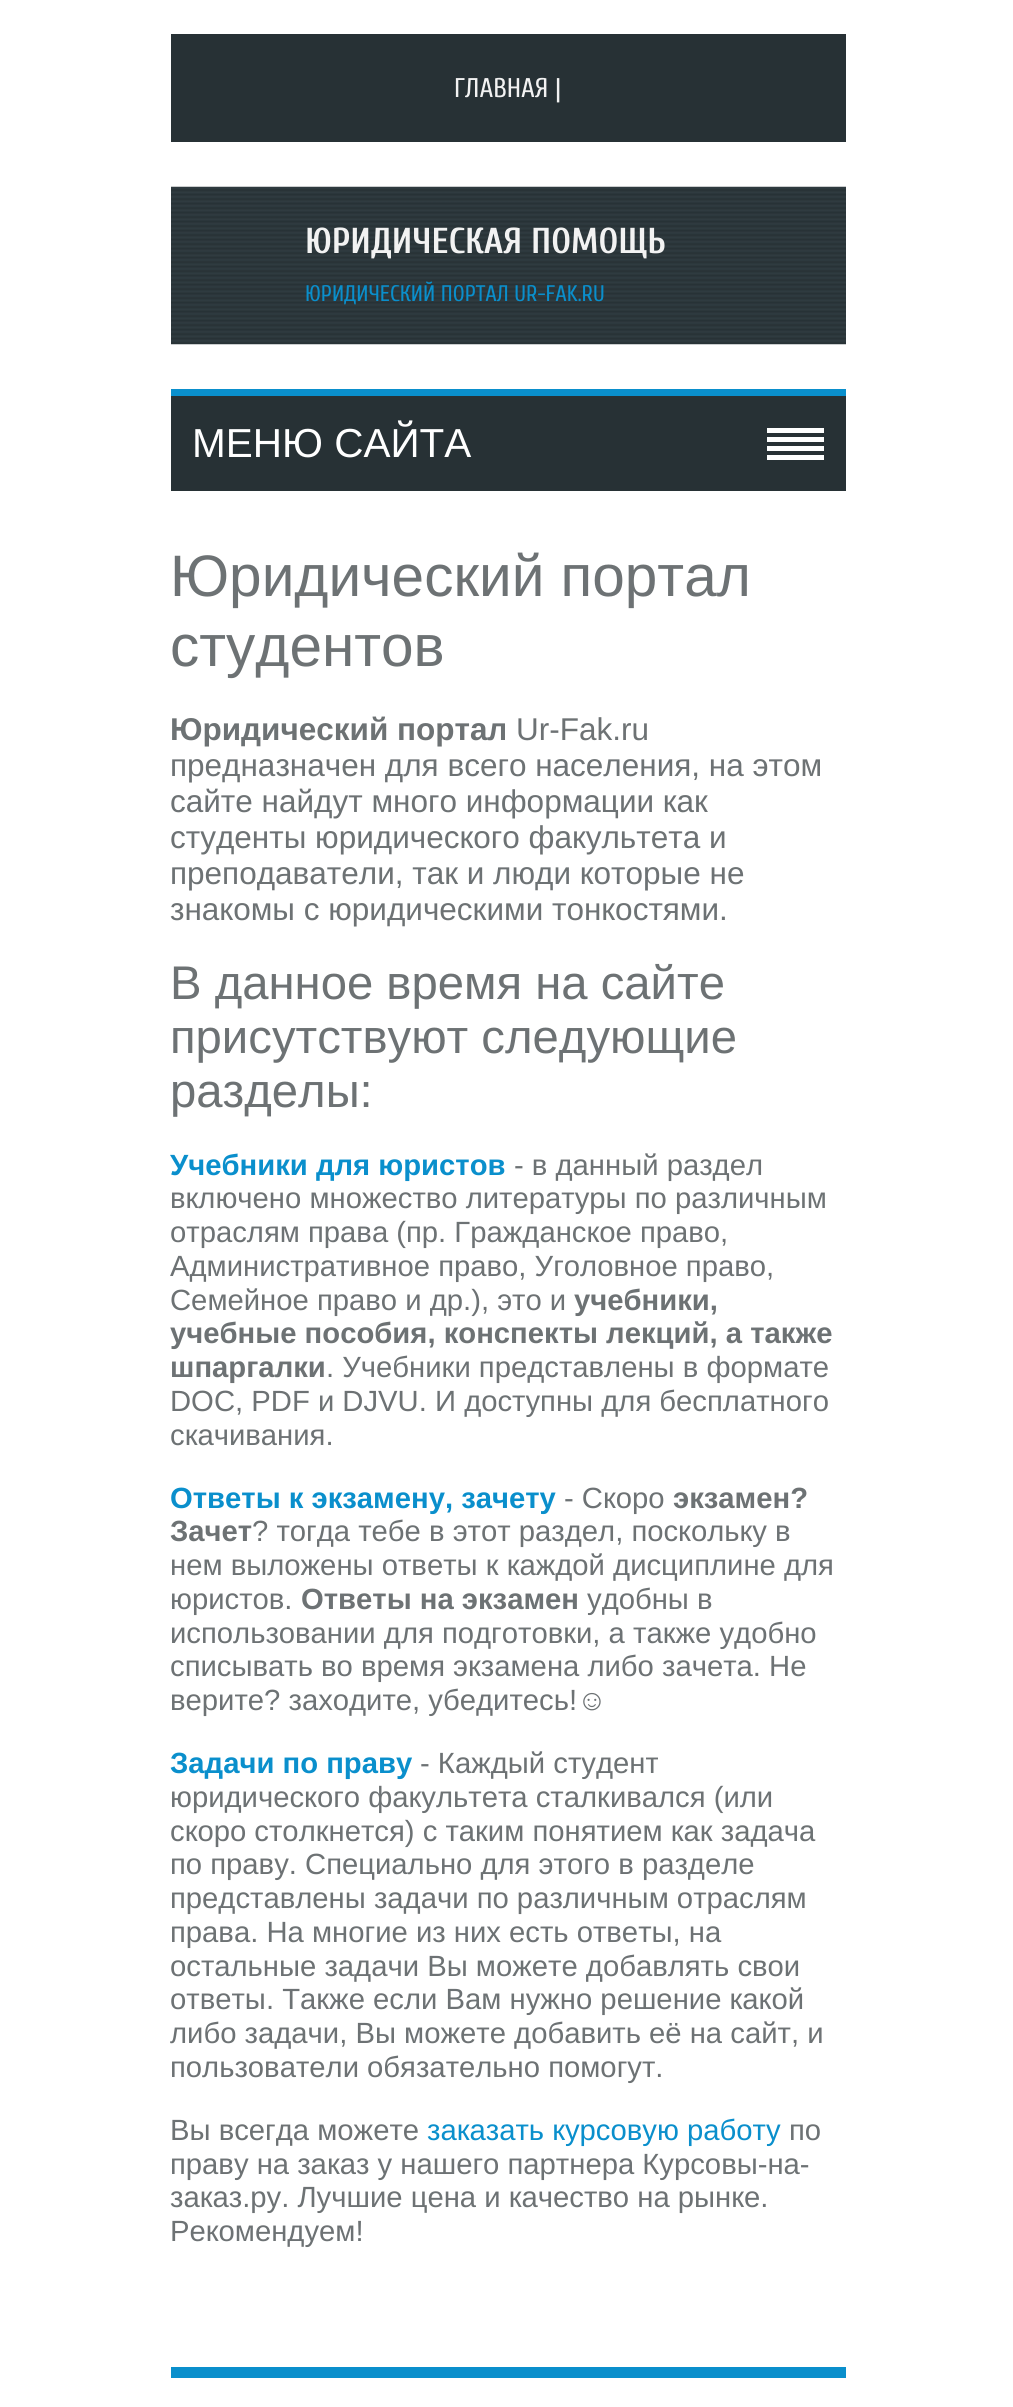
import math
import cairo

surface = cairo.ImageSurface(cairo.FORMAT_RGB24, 1013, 2407)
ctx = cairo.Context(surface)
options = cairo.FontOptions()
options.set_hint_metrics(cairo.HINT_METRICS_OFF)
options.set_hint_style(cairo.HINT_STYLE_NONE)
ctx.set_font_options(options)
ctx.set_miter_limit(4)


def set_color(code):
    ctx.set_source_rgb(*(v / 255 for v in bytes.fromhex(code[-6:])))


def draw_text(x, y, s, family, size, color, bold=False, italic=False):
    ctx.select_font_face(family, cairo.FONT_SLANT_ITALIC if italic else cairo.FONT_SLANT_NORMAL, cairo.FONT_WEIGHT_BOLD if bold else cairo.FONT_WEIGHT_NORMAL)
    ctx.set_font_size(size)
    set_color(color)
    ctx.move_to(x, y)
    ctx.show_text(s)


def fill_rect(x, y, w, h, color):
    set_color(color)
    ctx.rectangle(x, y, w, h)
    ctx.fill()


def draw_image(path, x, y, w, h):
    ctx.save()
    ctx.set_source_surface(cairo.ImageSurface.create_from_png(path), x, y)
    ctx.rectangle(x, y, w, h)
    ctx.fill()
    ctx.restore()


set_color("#ffffff")
ctx.paint()
fill_rect(171, 34, 675, 108, "#273135")
draw_text(454, 97, "ГЛАВНАЯ |", "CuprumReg", 27, "#f2f2f2")
draw_image("assets/img1.png", 171, 186, 675, 159)
draw_text(305, 253, "ЮРИДИЧЕСКАЯ ПОМОЩЬ", "Cuprum", 36, "#f2f2f2", bold=True)
draw_text(305, 301, "ЮРИДИЧЕСКИЙ ПОРТАЛ UR-FAK.RU", "CuprumReg", 22.5, "#0a8fcc")
fill_rect(171, 396, 675, 95, "#273135")
fill_rect(171, 389, 675, 7, "#0a8fcc")
draw_text(192, 457, "МЕНЮ САЙТА", "Liberation Sans", 40.5, "#ffffff")
fill_rect(767, 428, 57, 5, "#ffffff")
fill_rect(767, 437, 57, 5, "#ffffff")
fill_rect(767, 446, 57, 5, "#ffffff")
fill_rect(767, 455, 57, 5, "#ffffff")
draw_text(170, 596, "Юридический портал", "Liberation Sans", 58.5, "#6d7274")
draw_text(170, 666, "студентов", "Liberation Sans", 58.5, "#6d7274")
draw_text(170, 740, "Юридический портал", "Liberation Sans", 31.5, "#6d7274", bold=True)
draw_text(516, 740, "Ur-Fak.ru", "Liberation Sans", 31.5, "#6d7274")
draw_text(170, 776, "предназначен для всего населения, на этом", "Liberation Sans", 31.5, "#6d7274")
draw_text(170, 812, "сайте найдут много информации как", "Liberation Sans", 31.5, "#6d7274")
draw_text(170, 848, "студенты юридического факультета и", "Liberation Sans", 31.5, "#6d7274")
draw_text(170, 884, "преподаватели, так и люди которые не", "Liberation Sans", 31.5, "#6d7274")
draw_text(170, 920, "знакомы с юридическими тонкостями.", "Liberation Sans", 31.5, "#6d7274")
draw_text(170, 999, "В данное время на сайте", "Liberation Sans", 47.25, "#6d7274")
draw_text(170, 1053, "присутствуют следующие", "Liberation Sans", 47.25, "#6d7274")
draw_text(170, 1107, "разделы:", "Liberation Sans", 47.25, "#6d7274")
draw_text(170, 1175, "Учебники для юристов", "Liberation Sans", 29.25, "#0a8fcc", bold=True)
draw_text(514, 1175, "- в данный раздел", "Liberation Sans", 29.25, "#6d7274")
draw_text(170, 1208, "включено множество литературы по различным", "Liberation Sans", 29.25, "#6d7274")
draw_text(170, 1242, "отраслям права (пр. Гражданское право,", "Liberation Sans", 29.25, "#6d7274")
draw_text(170, 1276, "Административное право, Уголовное право,", "Liberation Sans", 29.25, "#6d7274")
draw_text(170, 1310, "Семейное право и др.), это и", "Liberation Sans", 29.25, "#6d7274")
draw_text(574, 1310, "учебники,", "Liberation Sans", 29.25, "#6d7274", bold=True)
draw_text(170, 1343, "учебные пособия, конспекты лекций, а также", "Liberation Sans", 29.25, "#6d7274", bold=True)
draw_text(170, 1377, "шпаргалки", "Liberation Sans", 29.25, "#6d7274", bold=True)
draw_text(326, 1377, ". Учебники представлены в формате", "Liberation Sans", 29.25, "#6d7274")
draw_text(170, 1411, "DOC, PDF и DJVU. И доступны для бесплатного", "Liberation Sans", 29.25, "#6d7274")
draw_text(170, 1445, "скачивания.", "Liberation Sans", 29.25, "#6d7274")
draw_text(170, 1508, "Ответы к экзамену, зачету", "Liberation Sans", 29.25, "#0a8fcc", bold=True)
draw_text(564, 1508, "- Скоро", "Liberation Sans", 29.25, "#6d7274")
draw_text(673, 1508, "экзамен?", "Liberation Sans", 29.25, "#6d7274", bold=True)
draw_text(170, 1541, "Зачет", "Liberation Sans", 29.25, "#6d7274", bold=True)
draw_text(252, 1541, "? тогда тебе в этот раздел, поскольку в", "Liberation Sans", 29.25, "#6d7274")
draw_text(170, 1575, "нем выложены ответы к каждой дисциплине для", "Liberation Sans", 29.25, "#6d7274")
draw_text(170, 1609, "юристов.", "Liberation Sans", 29.25, "#6d7274")
draw_text(301, 1609, "Ответы на экзамен", "Liberation Sans", 29.25, "#6d7274", bold=True)
draw_text(587, 1609, "удобны в", "Liberation Sans", 29.25, "#6d7274")
draw_text(170, 1643, "использовании для подготовки, а также удобно", "Liberation Sans", 29.25, "#6d7274")
draw_text(170, 1676, "списывать во время экзамена либо зачета. Не", "Liberation Sans", 29.25, "#6d7274")
draw_text(170, 1710, "верите? заходите, убедитесь!☺", "Liberation Sans", 29.25, "#6d7274")
draw_text(170, 1773, "Задачи по праву", "Liberation Sans", 29.25, "#0a8fcc", bold=True)
draw_text(420, 1773, "- Каждый студент", "Liberation Sans", 29.25, "#6d7274")
draw_text(170, 1807, "юридического факультета сталкивался (или", "Liberation Sans", 29.25, "#6d7274")
draw_text(170, 1841, "скоро столкнется) с таким понятием как задача", "Liberation Sans", 29.25, "#6d7274")
draw_text(170, 1874, "по праву. Специально для этого в разделе", "Liberation Sans", 29.25, "#6d7274")
draw_text(170, 1908, "представлены задачи по различным отраслям", "Liberation Sans", 29.25, "#6d7274")
draw_text(170, 1942, "права. На многие из них есть ответы, на", "Liberation Sans", 29.25, "#6d7274")
draw_text(170, 1976, "остальные задачи Вы можете добавлять свои", "Liberation Sans", 29.25, "#6d7274")
draw_text(170, 2009, "ответы. Также если Вам нужно решение какой", "Liberation Sans", 29.25, "#6d7274")
draw_text(170, 2043, "либо задачи, Вы можете добавить её на сайт, и", "Liberation Sans", 29.25, "#6d7274")
draw_text(170, 2077, "пользователи обязательно помогут.", "Liberation Sans", 29.25, "#6d7274")
draw_text(170, 2140, "Вы всегда можете", "Liberation Sans", 29.25, "#6d7274")
draw_text(427, 2140, "заказать курсовую работу", "Liberation Sans", 29.25, "#0a8fcc")
draw_text(789, 2140, "по", "Liberation Sans", 29.25, "#6d7274")
draw_text(170, 2174, "праву на заказ у нашего партнера Курсовы-на-", "Liberation Sans", 29.25, "#6d7274")
draw_text(170, 2207, "заказ.ру. Лучшие цена и качество на рынке.", "Liberation Sans", 29.25, "#6d7274")
draw_text(170, 2241, "Рекомендуем!", "Liberation Sans", 29.25, "#6d7274")
fill_rect(171, 2367, 675, 11, "#0a8fcc")
surface.write_to_png("output.png")
